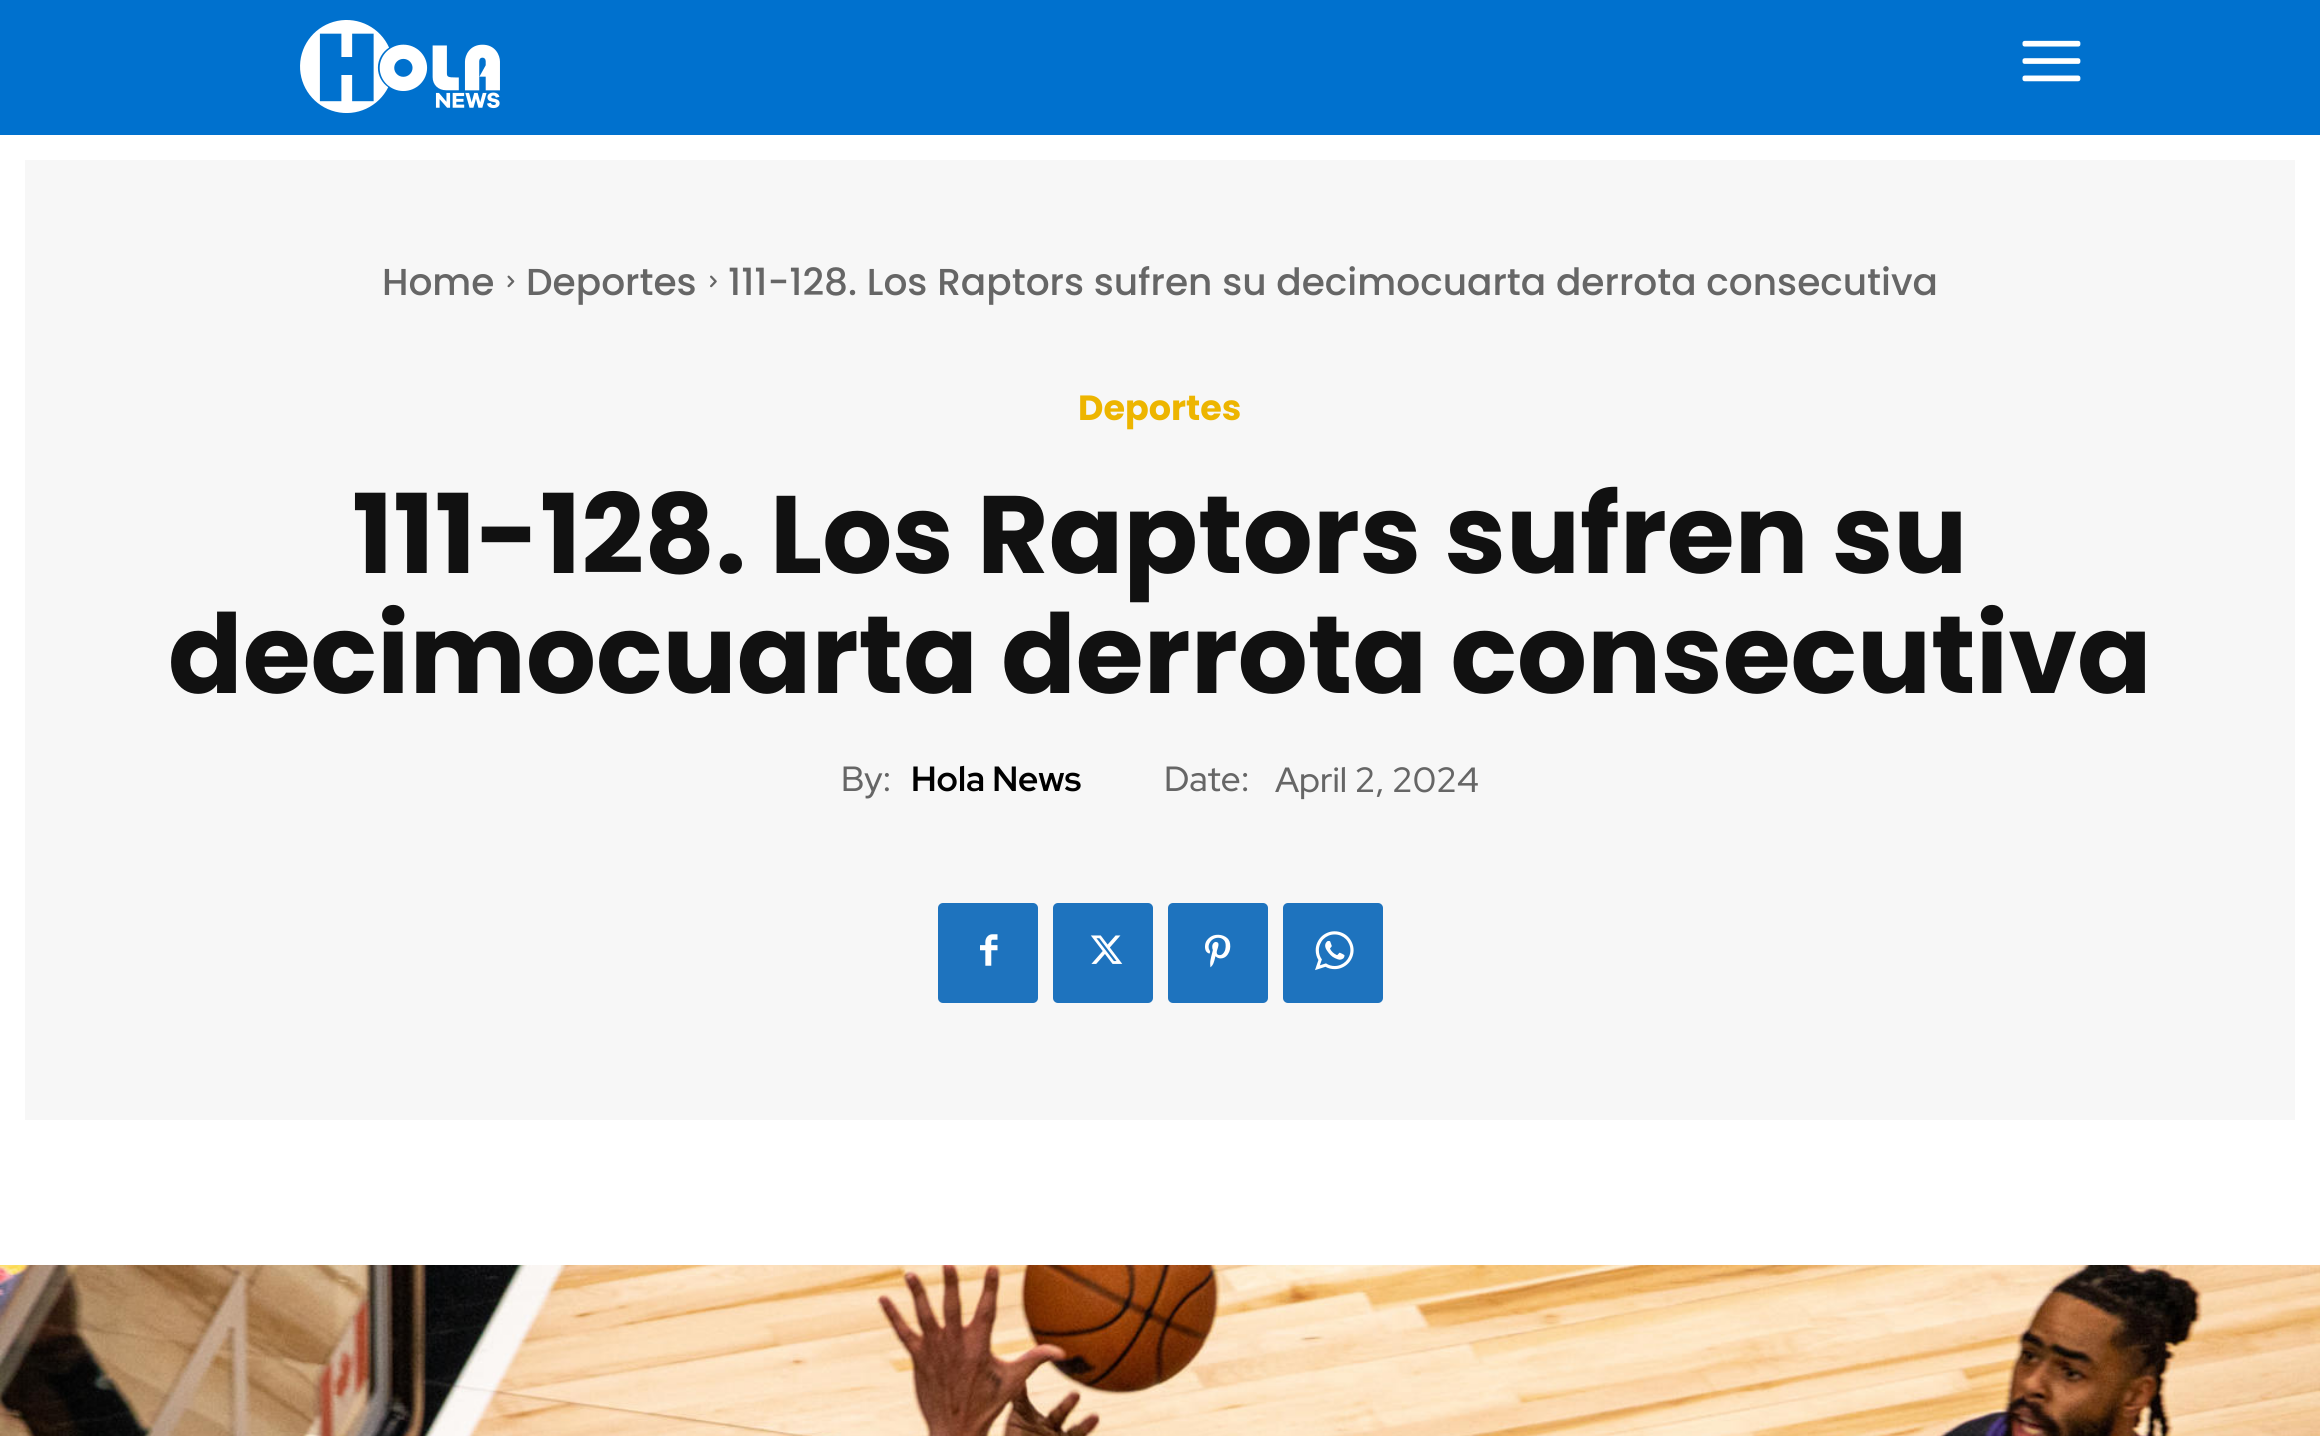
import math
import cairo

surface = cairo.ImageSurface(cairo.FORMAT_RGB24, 2320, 1436)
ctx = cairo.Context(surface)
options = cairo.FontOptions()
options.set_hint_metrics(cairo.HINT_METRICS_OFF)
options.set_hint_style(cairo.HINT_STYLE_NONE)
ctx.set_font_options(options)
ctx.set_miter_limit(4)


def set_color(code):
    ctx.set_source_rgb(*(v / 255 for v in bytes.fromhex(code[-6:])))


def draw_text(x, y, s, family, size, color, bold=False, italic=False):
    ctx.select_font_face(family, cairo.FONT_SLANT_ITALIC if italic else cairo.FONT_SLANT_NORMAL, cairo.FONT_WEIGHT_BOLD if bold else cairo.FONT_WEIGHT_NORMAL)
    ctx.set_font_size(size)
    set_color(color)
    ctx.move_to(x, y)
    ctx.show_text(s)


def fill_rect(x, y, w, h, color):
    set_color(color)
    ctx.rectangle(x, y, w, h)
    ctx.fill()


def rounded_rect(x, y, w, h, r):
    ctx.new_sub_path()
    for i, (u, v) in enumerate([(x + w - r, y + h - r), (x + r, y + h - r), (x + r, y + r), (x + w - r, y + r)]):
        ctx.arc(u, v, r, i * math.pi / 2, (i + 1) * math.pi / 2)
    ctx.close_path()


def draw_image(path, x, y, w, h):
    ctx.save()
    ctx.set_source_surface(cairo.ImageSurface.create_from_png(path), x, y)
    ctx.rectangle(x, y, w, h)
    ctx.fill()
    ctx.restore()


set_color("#ffffff")
ctx.paint()
fill_rect(0, 0, 2320, 135, "#0071ce")
draw_image("assets/img1.png", 300, 20, 200, 93)
draw_image("assets/img2.png", 2022, 40, 59, 42)
fill_rect(25, 160, 2270, 960, "#f7f7f7")
draw_text(382, 295, "Home", "Poppins Medium", 37.5, "#666666")
draw_image("assets/img3.png", 507, 275, 8, 13)
draw_text(526, 295, "Deportes", "Poppins Medium", 37.5, "#666666")
draw_image("assets/img4.png", 710, 275, 7, 13)
draw_text(728, 295, "111-128. Los Raptors sufren su decimocuarta derrota consecutiva", "Poppins Medium", 37.5, "#666666")
draw_text(1078, 420, "Deportes", "Poppins", 35, "#edb500", bold=True)
draw_text(352, 573, "111-128. Los Raptors sufren su", "Poppins", 110, "#111111", bold=True)
draw_text(168, 693, "decimocuarta derrota consecutiva", "Poppins", 110, "#111111", bold=True)
draw_text(841, 791, "By:", "Red Hat Display Medium", 35, "#666666")
draw_text(911, 791, "Hola News", "Red Hat Display", 35, "#000000", bold=True)
draw_text(1164, 791, "Date:", "Red Hat Display Medium", 35, "#666666")
draw_text(1275, 792, "April 2, 2024", "Red Hat Display Medium", 35, "#666666")
set_color("#1e73be")
rounded_rect(938, 903, 100, 100, 5)
ctx.fill()
draw_image("assets/img5.png", 980, 934, 18, 32)
rounded_rect(1053, 903, 100, 100, 5)
ctx.fill()
draw_image("assets/img6.png", 1090, 935, 33, 29)
rounded_rect(1168, 903, 100, 100, 5)
ctx.fill()
draw_image("assets/img7.png", 1205, 934, 26, 34)
rounded_rect(1283, 903, 100, 100, 5)
ctx.fill()
draw_image("assets/img8.png", 1315, 931, 39, 40)
draw_image("assets/img9.png", 0, 1265, 2320, 171)
surface.write_to_png("output.png")
